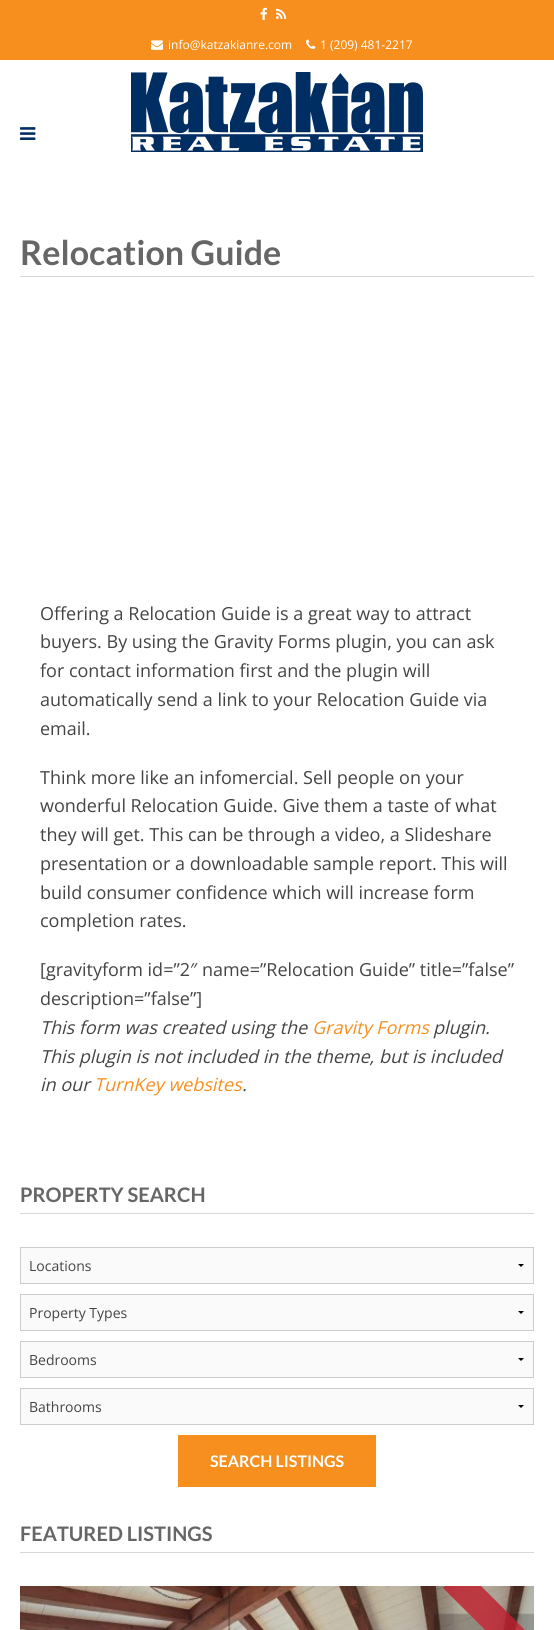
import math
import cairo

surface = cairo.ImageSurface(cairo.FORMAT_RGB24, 554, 1630)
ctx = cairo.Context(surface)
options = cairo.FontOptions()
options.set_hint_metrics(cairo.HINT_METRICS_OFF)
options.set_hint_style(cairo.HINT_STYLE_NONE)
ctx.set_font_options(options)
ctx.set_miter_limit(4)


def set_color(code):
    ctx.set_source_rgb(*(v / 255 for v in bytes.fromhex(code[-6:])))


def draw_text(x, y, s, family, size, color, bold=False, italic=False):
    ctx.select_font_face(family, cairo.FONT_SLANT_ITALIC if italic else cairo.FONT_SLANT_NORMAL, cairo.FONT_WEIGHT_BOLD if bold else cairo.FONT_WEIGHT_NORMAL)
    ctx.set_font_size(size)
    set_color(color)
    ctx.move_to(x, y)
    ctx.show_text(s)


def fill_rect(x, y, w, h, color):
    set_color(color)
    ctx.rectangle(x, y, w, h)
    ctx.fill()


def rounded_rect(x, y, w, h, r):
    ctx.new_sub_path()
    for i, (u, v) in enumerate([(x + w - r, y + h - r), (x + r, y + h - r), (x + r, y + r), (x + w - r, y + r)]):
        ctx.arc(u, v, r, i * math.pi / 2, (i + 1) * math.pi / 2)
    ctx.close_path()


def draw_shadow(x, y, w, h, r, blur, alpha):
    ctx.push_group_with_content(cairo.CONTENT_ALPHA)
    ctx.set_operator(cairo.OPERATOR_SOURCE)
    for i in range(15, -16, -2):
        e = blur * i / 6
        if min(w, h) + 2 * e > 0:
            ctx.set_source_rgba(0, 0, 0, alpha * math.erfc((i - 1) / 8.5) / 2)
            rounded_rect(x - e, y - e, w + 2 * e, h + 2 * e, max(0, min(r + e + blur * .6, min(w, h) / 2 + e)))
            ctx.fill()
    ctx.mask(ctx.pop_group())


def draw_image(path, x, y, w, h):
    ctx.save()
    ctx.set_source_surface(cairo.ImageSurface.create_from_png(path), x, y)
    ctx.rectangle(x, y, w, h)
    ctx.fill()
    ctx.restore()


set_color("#ffffff")
ctx.paint()
fill_rect(0, 0, 554, 60, "#f78f1e")
draw_image("assets/img1.png", 260, 7, 7, 13)
draw_image("assets/img2.png", 276, 8, 11, 11)
draw_image("assets/img3.png", 151, 40, 12, 10)
draw_text(168, 49, "info@katzakianre.com", "Open Sans", 12, "#ffffff")
draw_image("assets/img4.png", 306, 39, 10, 10)
draw_text(320, 49, "1 (209) 481-2217", "Open Sans", 12, "#ffffff")
draw_image("assets/img5.png", 20, 127, 16, 13)
draw_image("assets/img6.png", 131, 72, 292, 80)
fill_rect(20, 276, 514, 1, "#d8d8d8")
draw_text(20, 265, "Relocation Guide", "Lato", 34, "#666666", bold=True)
draw_text(40, 620, "Offering a Relocation Guide is a great way to attract", "Open Sans", 18, "#444444")
draw_text(40, 648, "buyers. By using the Gravity Forms plugin, you can ask", "Open Sans", 18, "#444444")
draw_text(40, 677, "for contact information first and the plugin will", "Open Sans", 18, "#444444")
draw_text(40, 706, "automatically send a link to your Relocation Guide via", "Open Sans", 18, "#444444")
draw_text(40, 735, "email.", "Open Sans", 18, "#444444")
draw_text(40, 784, "Think more like an infomercial. Sell people on your", "Open Sans", 18, "#444444")
draw_text(40, 812, "wonderful Relocation Guide. Give them a taste of what", "Open Sans", 18, "#444444")
draw_text(40, 841, "they will get. This can be through a video, a Slideshare", "Open Sans", 18, "#444444")
draw_text(40, 870, "presentation or a downloadable sample report. This will", "Open Sans", 18, "#444444")
draw_text(40, 899, "build consumer confidence which will increase form", "Open Sans", 18, "#444444")
draw_text(40, 927, "completion rates.", "Open Sans", 18, "#444444")
draw_text(40, 976, "[gravityform id=”2″ name=”Relocation Guide” title=”false”", "Open Sans", 18, "#444444")
draw_text(40, 1005, "description=”false”]", "Open Sans", 18, "#444444")
draw_text(40, 1034, "This form was created using the", "Open Sans", 18, "#444444", italic=True)
draw_text(312, 1034, "Gravity Forms", "Open Sans", 18, "#f78f1e", italic=True)
draw_text(433, 1034, "plugin.", "Open Sans", 18, "#444444", italic=True)
draw_text(40, 1063, "This plugin is not included in the theme, but is included", "Open Sans", 18, "#444444", italic=True)
draw_text(40, 1091, "in our", "Open Sans", 18, "#444444", italic=True)
draw_text(94, 1091, "TurnKey websites", "Open Sans", 18, "#f78f1e", italic=True)
draw_text(242, 1091, ".", "Open Sans", 18, "#444444", italic=True)
fill_rect(20, 1213, 514, 1, "#d8d8d8")
draw_text(20, 1202, "PROPERTY SEARCH", "Lato", 20, "#666666", bold=True)
fill_rect(21, 1248, 512, 35, "#fafafa")
set_color("#000000")
ctx.new_path()
ctx.move_to(524, 1264)
ctx.line_to(521, 1267)
ctx.line_to(518, 1264)
ctx.close_path()
ctx.fill()
ctx.rectangle(20.5, 1247.5, 513, 36)
set_color("#cccccc")
ctx.set_line_width(1)
ctx.stroke()
draw_text(29, 1271, "Locations", "Open Sans", 14, "#444444")
fill_rect(21, 1295, 512, 35, "#fafafa")
set_color("#000000")
ctx.new_path()
ctx.move_to(524, 1311)
ctx.line_to(521, 1314)
ctx.line_to(518, 1311)
ctx.close_path()
ctx.fill()
ctx.rectangle(20.5, 1294.5, 513, 36)
set_color("#cccccc")
ctx.stroke()
draw_text(29, 1318, "Property Types", "Open Sans", 14, "#444444")
fill_rect(21, 1342, 512, 35, "#fafafa")
set_color("#000000")
ctx.new_path()
ctx.move_to(524, 1358)
ctx.line_to(521, 1361)
ctx.line_to(518, 1358)
ctx.close_path()
ctx.fill()
ctx.rectangle(20.5, 1341.5, 513, 36)
set_color("#cccccc")
ctx.stroke()
draw_text(29, 1365, "Bedrooms", "Open Sans", 14, "#444444")
fill_rect(21, 1389, 512, 35, "#fafafa")
set_color("#000000")
ctx.new_path()
ctx.move_to(524, 1405)
ctx.line_to(521, 1408)
ctx.line_to(518, 1405)
ctx.close_path()
ctx.fill()
ctx.rectangle(20.5, 1388.5, 513, 36)
set_color("#cccccc")
ctx.stroke()
draw_text(29, 1412, "Bathrooms", "Open Sans", 14, "#444444")
fill_rect(178, 1435, 198, 52, "#f78f1e")
draw_text(210, 1467, "SEARCH LISTINGS", "Lato", 16, "#ffffff", bold=True)
fill_rect(20, 1552, 514, 1, "#d8d8d8")
draw_text(20, 1541, "FEATURED LISTINGS", "Lato", 20, "#666666", bold=True)
draw_image("assets/img7.png", 20, 1586, 514, 44)
ctx.save()
ctx.rectangle(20, 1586, 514, 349)
ctx.clip()
ctx.set_fill_rule(cairo.FILL_RULE_EVEN_ODD)
ctx.new_path()
ctx.move_to(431, 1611)
ctx.line_to(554, 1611)
ctx.line_to(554, 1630)
ctx.line_to(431, 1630)
ctx.close_path()
ctx.move_to(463, 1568)
ctx.line_to(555, 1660)
ctx.line_to(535, 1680)
ctx.line_to(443, 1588)
ctx.close_path()
ctx.clip()
set_color("#000000")
draw_shadow(434, 1614, 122, 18, 0, 0.5, 0.2)
ctx.restore()
ctx.save()
ctx.rectangle(20, 1586, 514, 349)
ctx.clip()
ctx.set_source_rgba(0.745, 0.114, 0.173, 0.8)
ctx.new_path()
ctx.move_to(463, 1568)
ctx.line_to(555, 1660)
ctx.line_to(535, 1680)
ctx.line_to(443, 1588)
ctx.close_path()
ctx.fill()
ctx.restore()
surface.write_to_png("output.png")
